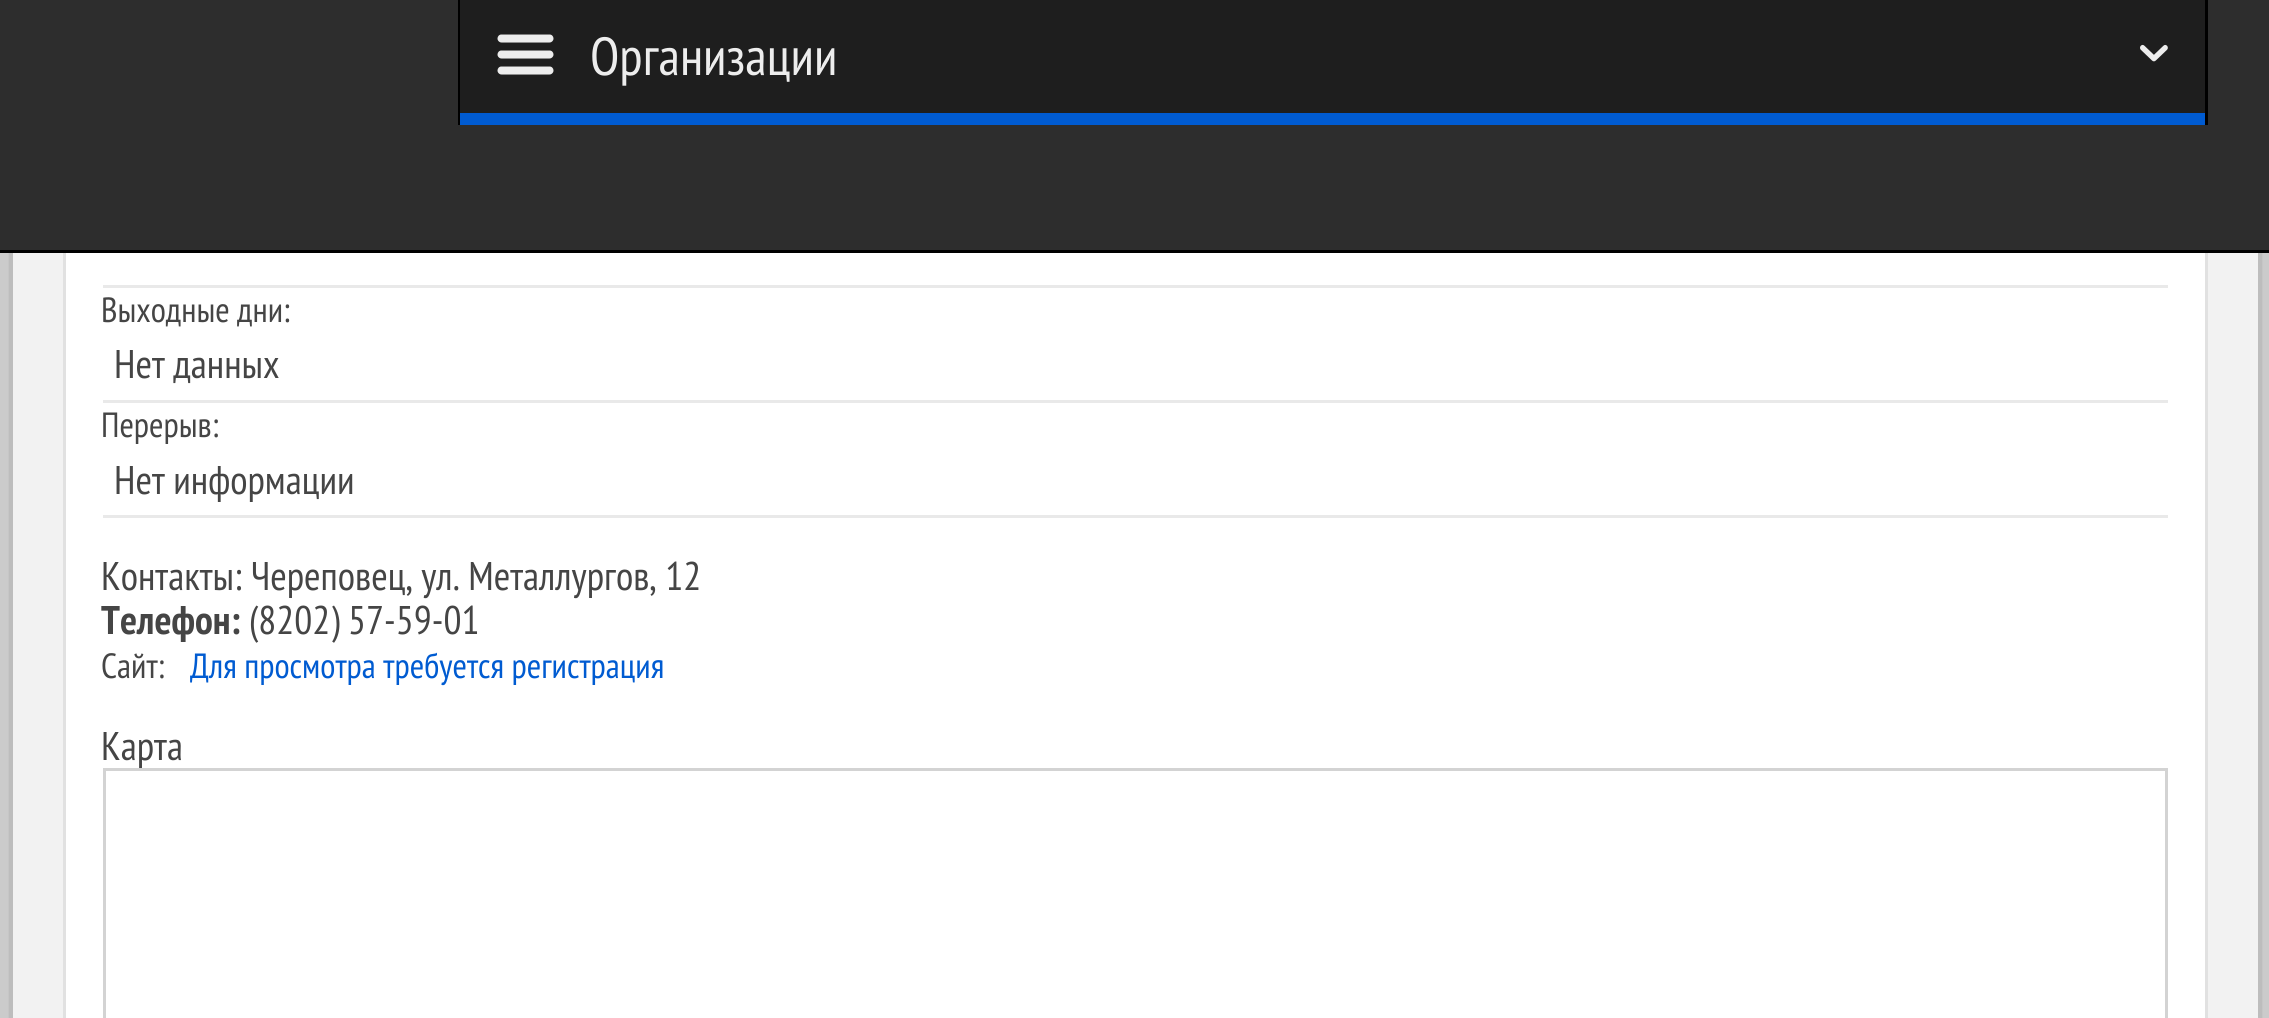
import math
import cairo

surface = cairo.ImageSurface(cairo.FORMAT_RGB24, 2269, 1018)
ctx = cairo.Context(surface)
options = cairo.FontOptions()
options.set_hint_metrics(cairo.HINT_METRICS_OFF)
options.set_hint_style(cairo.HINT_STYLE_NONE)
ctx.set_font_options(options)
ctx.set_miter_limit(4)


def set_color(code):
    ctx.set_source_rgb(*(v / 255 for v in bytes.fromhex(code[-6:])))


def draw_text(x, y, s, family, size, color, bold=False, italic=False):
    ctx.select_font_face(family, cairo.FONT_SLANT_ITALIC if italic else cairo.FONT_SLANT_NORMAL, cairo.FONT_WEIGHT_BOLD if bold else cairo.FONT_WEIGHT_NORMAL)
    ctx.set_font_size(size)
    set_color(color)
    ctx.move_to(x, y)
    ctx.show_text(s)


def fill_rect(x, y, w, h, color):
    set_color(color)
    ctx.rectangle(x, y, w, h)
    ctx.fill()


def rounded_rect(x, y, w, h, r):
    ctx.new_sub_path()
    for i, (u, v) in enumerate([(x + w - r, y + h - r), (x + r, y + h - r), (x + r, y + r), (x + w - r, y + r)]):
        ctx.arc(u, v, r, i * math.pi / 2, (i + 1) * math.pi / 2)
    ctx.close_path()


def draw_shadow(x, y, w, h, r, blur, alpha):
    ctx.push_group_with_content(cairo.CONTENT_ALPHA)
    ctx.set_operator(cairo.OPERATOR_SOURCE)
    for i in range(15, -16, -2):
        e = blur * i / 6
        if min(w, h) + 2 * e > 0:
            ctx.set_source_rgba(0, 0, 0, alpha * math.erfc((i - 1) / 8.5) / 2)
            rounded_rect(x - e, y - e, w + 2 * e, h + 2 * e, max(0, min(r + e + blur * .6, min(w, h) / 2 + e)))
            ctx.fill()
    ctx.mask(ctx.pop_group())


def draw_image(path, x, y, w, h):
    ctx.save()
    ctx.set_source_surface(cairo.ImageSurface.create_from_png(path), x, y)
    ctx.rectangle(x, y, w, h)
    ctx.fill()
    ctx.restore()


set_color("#f2f2f2")
ctx.paint()
set_color("#000000")
draw_shadow(13, -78, 2245, 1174, 0, 26, 0.44)
fill_rect(13, 253, 2245, 765, "#f2f2f2")
fill_rect(66, 253, 2139, 765, "#ffffff")
ctx.rectangle(64.5, -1.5, 2142, 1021)
set_color("#e1e1e1")
ctx.set_line_width(3)
ctx.stroke()
fill_rect(0, 0, 2269, 250, "#2d2d2d")
fill_rect(0, 250, 2269, 3, "#000000")
fill_rect(2205, 0, 3, 125, "#000000")
fill_rect(458, 0, 2, 125, "#000000")
fill_rect(460, 0, 1745, 113, "#1e1e1e")
fill_rect(460, 113, 1745, 12, "#005bd1")
draw_image("assets/img1.png", 497, 34, 57, 41)
draw_text(590, 75, "Организации", "PT Sans Narrow", 53.5, "#ededed")
draw_image("assets/img2.png", 2140, 44, 28, 18)
fill_rect(103, 285, 2065, 3, "#e9e9e9")
draw_text(101, 322, "Выходные дни:", "PT Sans Narrow", 35, "#454545")
fill_rect(103, 400, 2065, 3, "#e9e9e9")
draw_text(114, 378, "Нет данных", "PT Sans Narrow", 40, "#454545")
draw_text(101, 437, "Перерыв:", "PT Sans Narrow", 35, "#454545")
fill_rect(103, 515, 2065, 3, "#e9e9e9")
draw_text(114, 494, "Нет информации", "PT Sans Narrow", 40, "#454545")
draw_text(101, 590, "Контакты: Череповец, ул. Металлургов, 12", "PT Sans Narrow", 40, "#454545")
draw_text(101, 634, "Телефон:", "PT Sans Narrow", 40, "#454545", bold=True)
draw_text(249, 634, "(8202) 57-59-01", "PT Sans Narrow", 40, "#454545")
draw_text(101, 678, "Сайт:", "PT Sans Narrow", 35, "#454545")
draw_text(190, 678, "Для просмотра требуется регистрация", "PT Sans Narrow", 35, "#005bd1")
draw_text(101, 760, "Карта", "PT Sans Narrow", 40, "#454545")
ctx.rectangle(104.5, 769.5, 2062, 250)
set_color("#d3d3d3")
ctx.stroke()
surface.write_to_png("output.png")
